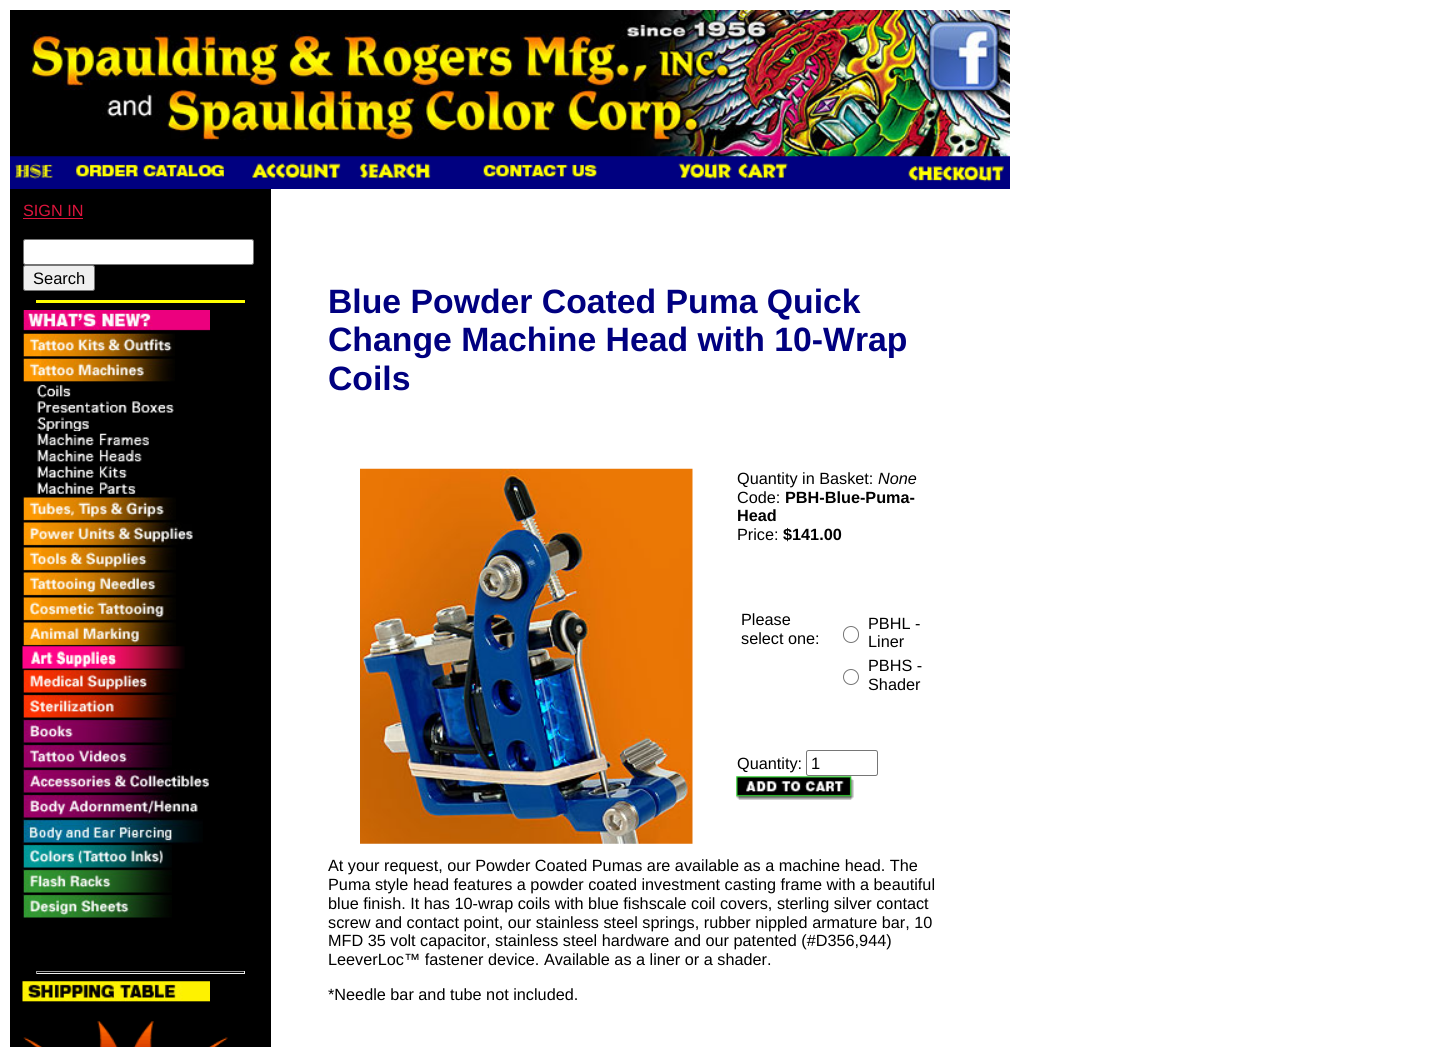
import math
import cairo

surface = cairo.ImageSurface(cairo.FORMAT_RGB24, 1439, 1047)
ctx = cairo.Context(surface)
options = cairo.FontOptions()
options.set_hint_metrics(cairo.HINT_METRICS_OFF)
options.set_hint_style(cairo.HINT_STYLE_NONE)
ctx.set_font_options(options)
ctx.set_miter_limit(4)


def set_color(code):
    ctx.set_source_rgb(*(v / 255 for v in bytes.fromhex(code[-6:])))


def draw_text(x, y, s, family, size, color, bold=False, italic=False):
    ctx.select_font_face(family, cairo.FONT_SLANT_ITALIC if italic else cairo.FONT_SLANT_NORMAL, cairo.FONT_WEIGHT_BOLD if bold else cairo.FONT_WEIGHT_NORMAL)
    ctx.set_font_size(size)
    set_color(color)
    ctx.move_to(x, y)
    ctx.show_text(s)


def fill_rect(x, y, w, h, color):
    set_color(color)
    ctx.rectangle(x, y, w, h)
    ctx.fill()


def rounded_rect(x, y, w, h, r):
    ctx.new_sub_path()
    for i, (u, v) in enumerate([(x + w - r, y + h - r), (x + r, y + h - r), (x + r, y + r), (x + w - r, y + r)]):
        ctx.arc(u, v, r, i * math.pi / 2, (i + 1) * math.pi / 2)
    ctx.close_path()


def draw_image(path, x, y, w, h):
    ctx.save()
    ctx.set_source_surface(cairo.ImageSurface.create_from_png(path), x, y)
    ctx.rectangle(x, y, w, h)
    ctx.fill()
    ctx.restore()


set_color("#ffffff")
ctx.paint()
fill_rect(10, 156, 1000, 33, "#000080")
draw_image("assets/img1.png", 10, 10, 900, 147)
draw_image("assets/img2.png", 910, 10, 100, 147)
draw_image("assets/img3.png", 15, 163, 38, 16)
draw_image("assets/img4.png", 76, 164, 148, 13)
draw_image("assets/img5.png", 252, 163, 89, 16)
draw_image("assets/img6.png", 359, 163, 72, 16)
draw_image("assets/img7.png", 483, 164, 114, 13)
draw_image("assets/img8.png", 678, 163, 110, 16)
draw_image("assets/img9.png", 908, 166, 96, 16)
fill_rect(10, 189, 261, 858, "#000000")
draw_text(23, 216, "SIGN IN", "Liberation Sans", 16.25, "#dc143c")
fill_rect(23, 218, 60, 1, "#dc143c")
set_color("#ffffff")
rounded_rect(23.5, 239.5, 230, 25, 2)
ctx.fill_preserve()
set_color("#767676")
ctx.set_line_width(1)
ctx.stroke()
set_color("#efefef")
rounded_rect(23.5, 265.5, 71, 25, 2)
ctx.fill_preserve()
set_color("#767676")
ctx.stroke()
draw_text(33, 284, "Search", "Liberation Sans", 16.5, "#000000")
fill_rect(36, 300, 209, 3, "#ffff00")
draw_image("assets/img10.png", 22, 310, 188, 21)
draw_image("assets/img11.png", 22, 332, 153, 26)
draw_image("assets/img12.png", 22, 357, 153, 26)
draw_image("assets/img13.png", 37, 384, 34, 14)
draw_image("assets/img14.png", 37, 401, 137, 12)
draw_image("assets/img15.png", 37, 417, 52, 15)
draw_image("assets/img16.png", 37, 431, 112, 15)
draw_image("assets/img17.png", 37, 449, 105, 13)
draw_image("assets/img18.png", 37, 466, 90, 12)
draw_image("assets/img19.png", 37, 482, 99, 12)
draw_image("assets/img20.png", 22, 496, 154, 25)
draw_image("assets/img21.png", 22, 521, 171, 25)
draw_image("assets/img22.png", 22, 546, 154, 25)
draw_image("assets/img23.png", 22, 571, 154, 25)
draw_image("assets/img24.png", 22, 596, 154, 25)
draw_image("assets/img25.png", 22, 621, 154, 25)
draw_image("assets/img26.png", 22, 646, 163, 23)
draw_image("assets/img27.png", 22, 668, 157, 26)
draw_image("assets/img28.png", 22, 693, 154, 26)
draw_image("assets/img29.png", 22, 719, 150, 25)
draw_image("assets/img30.png", 22, 743, 150, 26)
draw_image("assets/img31.png", 22, 769, 187, 25)
draw_image("assets/img32.png", 22, 794, 176, 25)
draw_image("assets/img33.png", 22, 818, 181, 26)
draw_image("assets/img34.png", 22, 844, 150, 24)
draw_image("assets/img35.png", 22, 868, 150, 25)
draw_image("assets/img36.png", 22, 893, 150, 25)
fill_rect(36, 971, 209, 1, "#9f9f9f")
fill_rect(244, 971, 1, 3, "#eeeeee")
fill_rect(36, 973, 209, 1, "#eeeeee")
fill_rect(36, 971, 1, 3, "#9f9f9f")
draw_image("assets/img37.png", 22, 981, 188, 21)
draw_image("assets/img38.png", 23, 1021, 205, 26)
draw_text(328, 313, "Blue Powder Coated Puma Quick", "Liberation Sans", 33.75, "#000080", bold=True)
draw_text(328, 351, "Change Machine Head with 10-Wrap", "Liberation Sans", 33.75, "#000080", bold=True)
draw_text(328, 390, "Coils", "Liberation Sans", 33.75, "#000080", bold=True)
draw_image("assets/img39.png", 360, 468, 333, 376)
draw_text(737, 484, "Quantity in Basket:", "Liberation Sans", 16.25, "#000000")
draw_text(878, 484, "None", "Liberation Sans", 16.25, "#000000", italic=True)
draw_text(737, 503, "Code:", "Liberation Sans", 16.25, "#000000")
draw_text(785, 503, "PBH-Blue-Puma-", "Liberation Sans", 16.25, "#000000", bold=True)
draw_text(737, 521, "Head", "Liberation Sans", 16.25, "#000000", bold=True)
draw_text(737, 540, "Price:", "Liberation Sans", 16.25, "#000000")
draw_text(783, 540, "$141.00", "Liberation Sans", 16.25, "#000000", bold=True)
draw_text(741, 625, "Please", "Liberation Sans", 16.25, "#000000")
draw_text(741, 644, "select one:", "Liberation Sans", 16.25, "#000000")
rounded_rect(843.5, 626.5, 15, 16, 7.5)
set_color("#767676")
ctx.stroke()
draw_text(868, 629, "PBHL -", "Liberation Sans", 16.25, "#000000")
draw_text(868, 647, "Liner", "Liberation Sans", 16.25, "#000000")
ctx.new_path()
ctx.arc(851, 677, 7.5, 0, 2 * math.pi)
set_color("#767676")
ctx.stroke()
draw_text(868, 671, "PBHS -", "Liberation Sans", 16.25, "#000000")
draw_text(868, 690, "Shader", "Liberation Sans", 16.25, "#000000")
draw_text(737, 769, "Quantity:", "Liberation Sans", 16.25, "#000000")
rounded_rect(806.5, 750.5, 71, 25, 2)
set_color("#767676")
ctx.stroke()
draw_text(811, 769, "1", "Liberation Sans", 16.5, "#000000")
draw_image("assets/img40.png", 736, 776, 118, 24)
draw_text(328, 871, "At your request, our Powder Coated Pumas are available as a machine head. The", "Liberation Sans", 16.25, "#000000")
draw_text(328, 890, "Puma style head features a powder coated investment casting frame with a beautiful", "Liberation Sans", 16.25, "#000000")
draw_text(328, 909, "blue finish. It has 10-wrap coils with blue fishscale coil covers, sterling silver contact", "Liberation Sans", 16.25, "#000000")
draw_text(328, 928, "screw and contact point, our stainless steel springs, rubber nippled armature bar, 10", "Liberation Sans", 16.25, "#000000")
draw_text(328, 946, "MFD 35 volt capacitor, stainless steel hardware and our patented (#D356,944)", "Liberation Sans", 16.25, "#000000")
draw_text(328, 965, "LeeverLoc™ fastener device. Available as a liner or a shader.", "Liberation Sans", 16.25, "#000000")
draw_text(328, 1000, "*Needle bar and tube not included.", "Liberation Sans", 16.25, "#000000")
surface.write_to_png("output.png")
